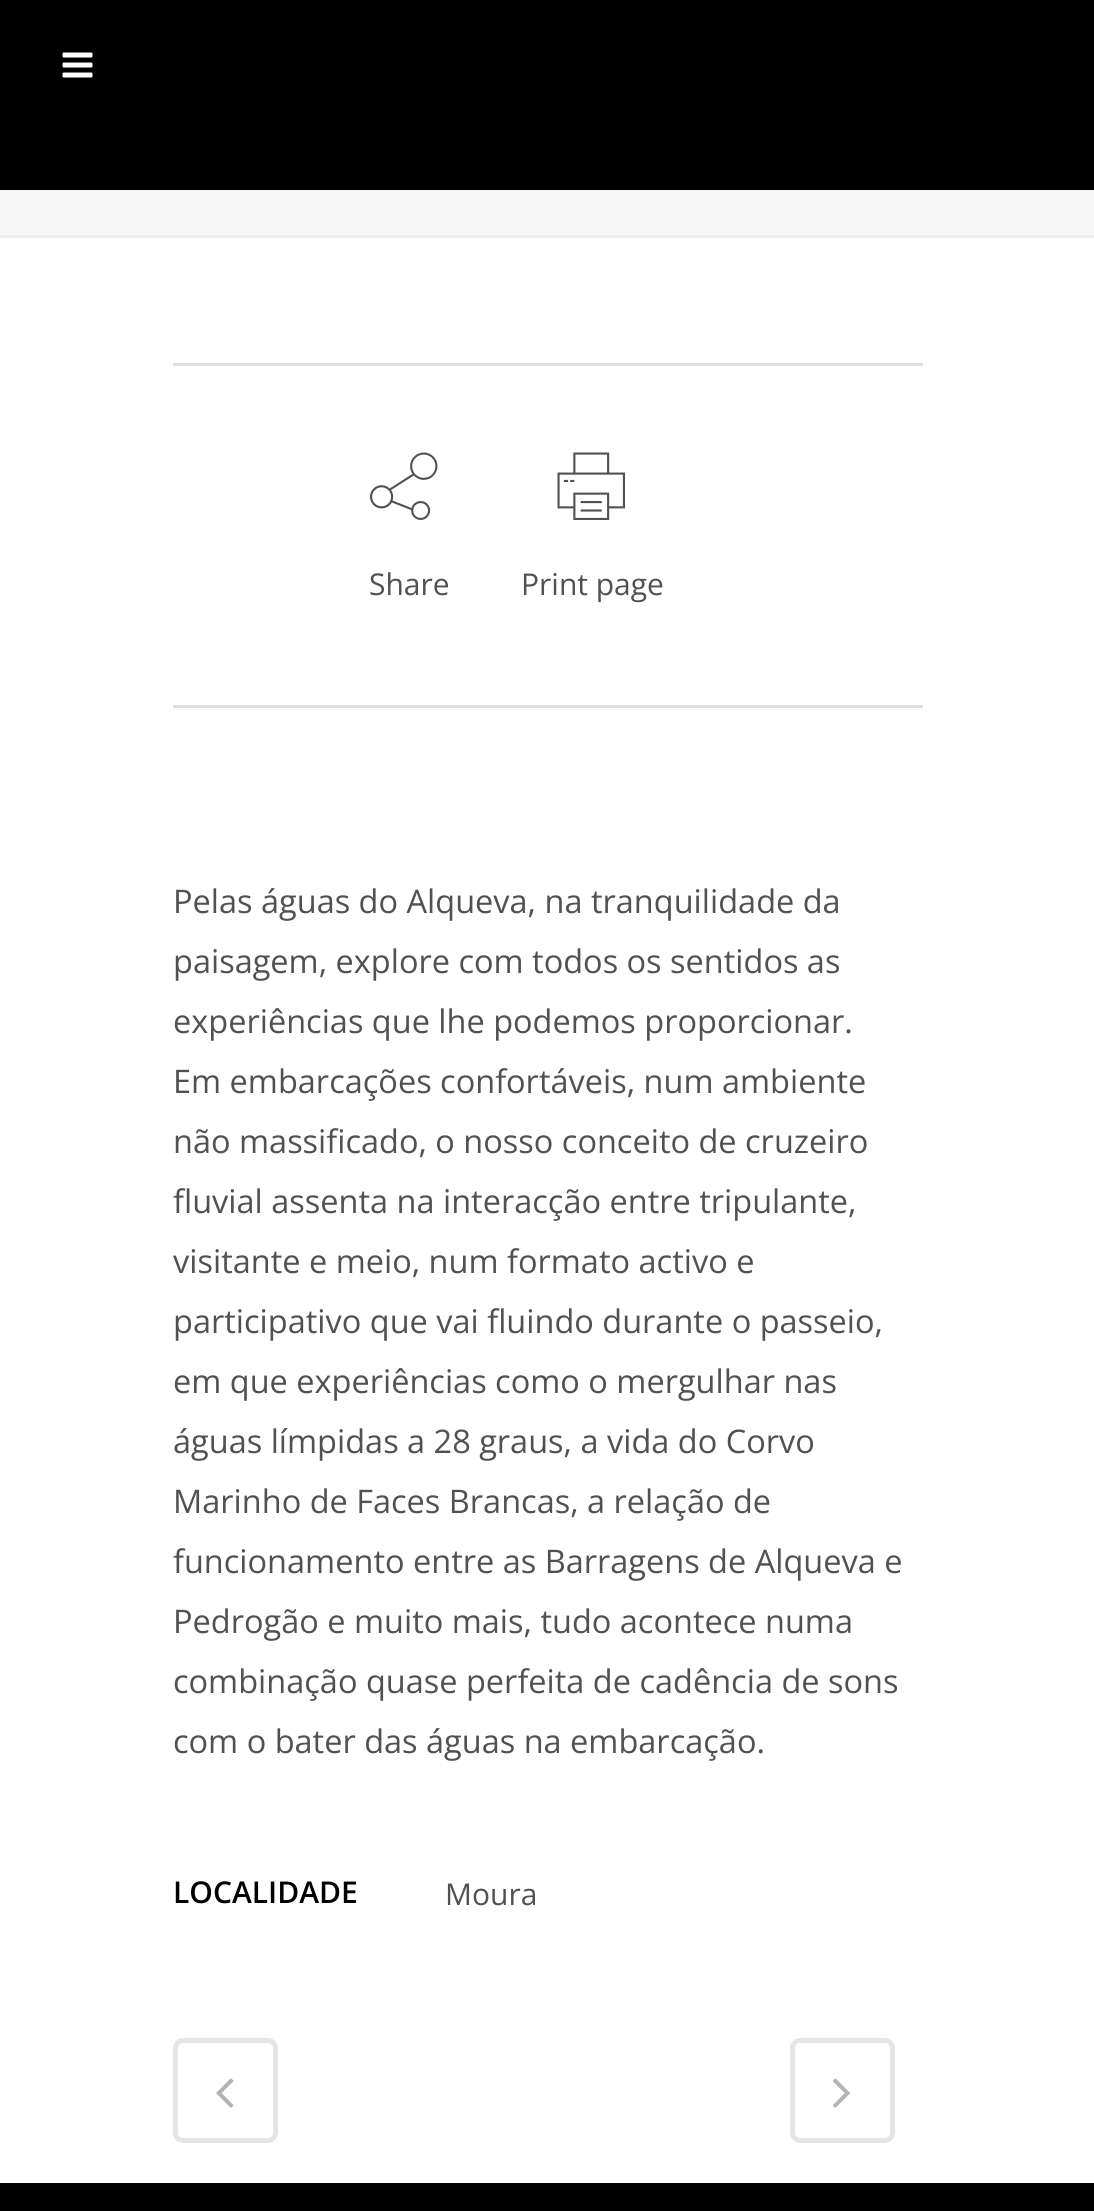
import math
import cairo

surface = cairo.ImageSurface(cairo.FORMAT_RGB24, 1094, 2211)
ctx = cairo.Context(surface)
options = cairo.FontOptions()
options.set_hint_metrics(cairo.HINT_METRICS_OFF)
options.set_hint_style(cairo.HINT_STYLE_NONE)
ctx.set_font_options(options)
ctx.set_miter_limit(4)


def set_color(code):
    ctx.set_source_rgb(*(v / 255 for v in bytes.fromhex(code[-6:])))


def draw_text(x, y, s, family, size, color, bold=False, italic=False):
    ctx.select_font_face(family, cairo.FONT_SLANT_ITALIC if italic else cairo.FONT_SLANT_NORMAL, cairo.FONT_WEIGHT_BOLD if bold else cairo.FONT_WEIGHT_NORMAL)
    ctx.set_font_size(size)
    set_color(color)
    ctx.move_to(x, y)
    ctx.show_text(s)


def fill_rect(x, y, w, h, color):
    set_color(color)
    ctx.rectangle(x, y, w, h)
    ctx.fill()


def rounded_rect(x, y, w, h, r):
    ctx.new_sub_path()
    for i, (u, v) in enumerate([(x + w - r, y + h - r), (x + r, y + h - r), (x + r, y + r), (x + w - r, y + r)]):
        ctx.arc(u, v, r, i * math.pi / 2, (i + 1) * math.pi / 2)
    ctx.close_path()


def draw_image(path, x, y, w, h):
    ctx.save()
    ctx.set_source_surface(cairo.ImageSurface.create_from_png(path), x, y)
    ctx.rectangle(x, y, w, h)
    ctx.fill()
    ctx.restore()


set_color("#ffffff")
ctx.paint()
fill_rect(0, 0, 1094, 190, "#000000")
draw_image("assets/img1.png", 62, 52, 31, 26)
fill_rect(0, 190, 1094, 45, "#f6f6f6")
fill_rect(0, 235, 1094, 3, "#eeeeee")
fill_rect(173, 363, 750, 3, "#e0e0e0")
fill_rect(173, 705, 750, 3, "#e0e0e0")
draw_image("assets/img2.png", 370, 452, 68, 68)
draw_text(369, 595, "Share", "Open Sans", 30, "#515151")
draw_image("assets/img3.png", 557, 452, 68, 68)
draw_text(521, 595, "Print page", "Open Sans", 30, "#515151")
draw_text(173, 913, "Pelas águas do Alqueva, na tranquilidade da", "Open Sans", 32.5, "#515151")
draw_text(173, 973, "paisagem, explore com todos os sentidos as", "Open Sans", 32.5, "#515151")
draw_text(173, 1033, "experiências que lhe podemos proporcionar.", "Open Sans", 32.5, "#515151")
draw_text(173, 1093, "Em embarcações confortáveis, num ambiente", "Open Sans", 32.5, "#515151")
draw_text(173, 1153, "não massificado, o nosso conceito de cruzeiro", "Open Sans", 32.5, "#515151")
draw_text(173, 1213, "fluvial assenta na interacção entre tripulante,", "Open Sans", 32.5, "#515151")
draw_text(173, 1273, "visitante e meio, num formato activo e", "Open Sans", 32.5, "#515151")
draw_text(173, 1333, "participativo que vai fluindo durante o passeio,", "Open Sans", 32.5, "#515151")
draw_text(173, 1393, "em que experiências como o mergulhar nas", "Open Sans", 32.5, "#515151")
draw_text(173, 1453, "águas límpidas a 28 graus, a vida do Corvo", "Open Sans", 32.5, "#515151")
draw_text(173, 1513, "Marinho de Faces Brancas, a relação de", "Open Sans", 32.5, "#515151")
draw_text(173, 1573, "funcionamento entre as Barragens de Alqueva e", "Open Sans", 32.5, "#515151")
draw_text(173, 1633, "Pedrogão e muito mais, tudo acontece numa", "Open Sans", 32.5, "#515151")
draw_text(173, 1693, "combinação quase perfeita de cadência de sons", "Open Sans", 32.5, "#515151")
draw_text(173, 1753, "com o bater das águas na embarcação.", "Open Sans", 32.5, "#515151")
draw_text(173, 1903, "LOCALIDADE", "Open Sans SemiBold", 30, "#000000")
draw_text(445, 1905, "Moura", "Open Sans", 30, "#515151")
rounded_rect(175.5, 2040.5, 100, 100, 7.5)
set_color("#e5e5e5")
ctx.set_line_width(5)
ctx.stroke()
draw_image("assets/img4.png", 216, 2078, 18, 30)
rounded_rect(792.5, 2040.5, 100, 100, 7.5)
ctx.stroke()
draw_image("assets/img5.png", 832, 2078, 18, 30)
fill_rect(0, 2183, 1094, 28, "#000000")
surface.write_to_png("output.png")
